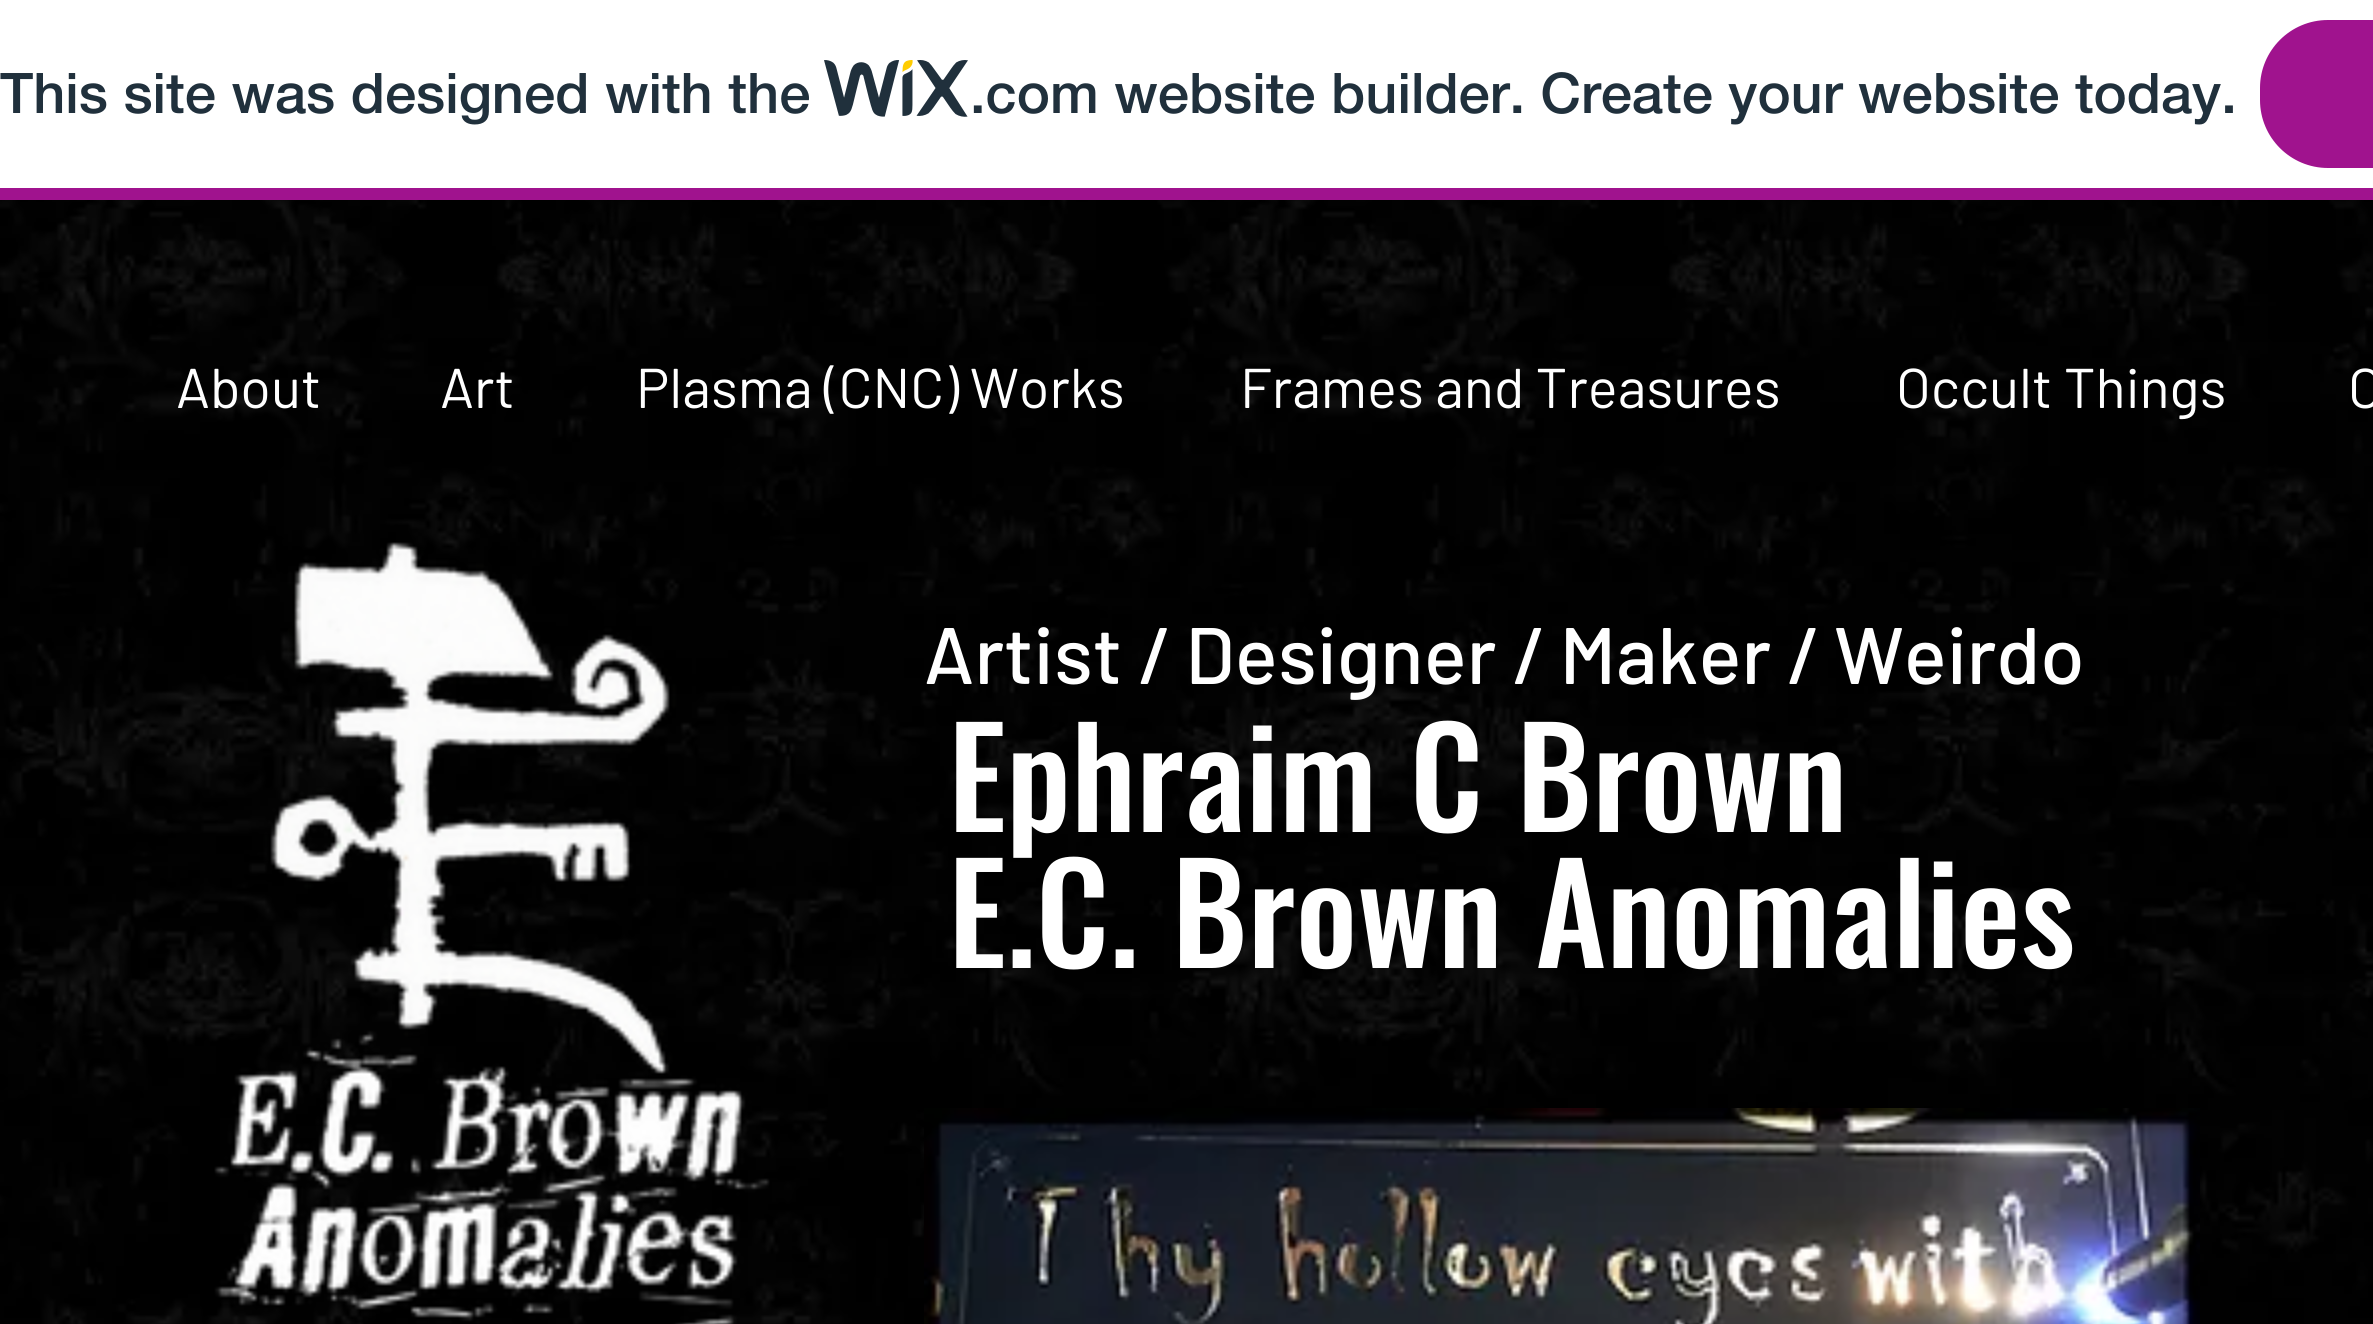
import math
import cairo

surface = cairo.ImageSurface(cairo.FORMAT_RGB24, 2373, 1324)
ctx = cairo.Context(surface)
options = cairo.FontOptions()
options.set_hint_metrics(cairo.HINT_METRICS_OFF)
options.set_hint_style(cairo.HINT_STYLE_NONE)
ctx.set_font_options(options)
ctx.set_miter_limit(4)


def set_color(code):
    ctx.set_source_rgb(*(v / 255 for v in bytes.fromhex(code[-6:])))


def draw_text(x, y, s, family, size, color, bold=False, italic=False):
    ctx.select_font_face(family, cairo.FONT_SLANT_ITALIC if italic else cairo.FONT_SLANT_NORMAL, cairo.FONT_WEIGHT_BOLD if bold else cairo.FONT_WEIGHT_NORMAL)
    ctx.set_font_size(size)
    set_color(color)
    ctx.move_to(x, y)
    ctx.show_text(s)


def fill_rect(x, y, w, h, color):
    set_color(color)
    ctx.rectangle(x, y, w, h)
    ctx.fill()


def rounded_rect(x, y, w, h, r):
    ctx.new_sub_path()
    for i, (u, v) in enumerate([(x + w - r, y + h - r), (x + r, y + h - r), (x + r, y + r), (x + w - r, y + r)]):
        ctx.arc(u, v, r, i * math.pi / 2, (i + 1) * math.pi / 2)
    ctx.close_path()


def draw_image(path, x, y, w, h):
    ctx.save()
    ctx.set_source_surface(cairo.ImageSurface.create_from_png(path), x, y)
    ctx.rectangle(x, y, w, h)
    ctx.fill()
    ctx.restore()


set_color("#ffffff")
ctx.paint()
fill_rect(0, 188, 2373, 12, "#a0138e")
draw_text(0, 113, "This site was designed with the", "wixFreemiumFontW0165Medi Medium", 56, "#20303c")
draw_image("assets/img1.png", 824, 60, 144, 57)
draw_text(970, 113, ".com website builder. Create your website today.", "wixFreemiumFontW0165Medi Medium", 56, "#20303c")
set_color("#a0138e")
rounded_rect(2262, 22, 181, 144, 66)
ctx.fill_preserve()
ctx.set_line_width(4)
ctx.stroke()
draw_image("assets/img2.png", 0, 200, 2373, 1124)
draw_text(176, 408, "About", "Barlow", 56, "#ffffff")
draw_text(440, 408, "Art", "Barlow", 56, "#ffffff")
draw_text(636, 408, "Plasma (CNC) Works", "Barlow", 56, "#ffffff")
draw_text(1240, 408, "Frames and Treasures", "Barlow", 56, "#ffffff")
draw_text(1896, 408, "Occult Things", "Barlow", 56, "#ffffff")
draw_text(2348, 408, "C", "Barlow", 56, "#ffffff")
draw_image("assets/img3.png", 214, 542, 556, 782)
draw_text(924, 684, "Artist / Designer / Maker / Weirdo", "Barlow Medium", 80, "#ffffff")
draw_text(948, 832, "Ephraim C Brown", "Oswald Medium", 136, "#ffffff")
draw_text(948, 968, "E.C. Brown Anomalies", "Oswald Medium", 136, "#ffffff")
draw_image("assets/img4.png", 924, 1108, 1276, 216)
surface.write_to_png("output.png")
